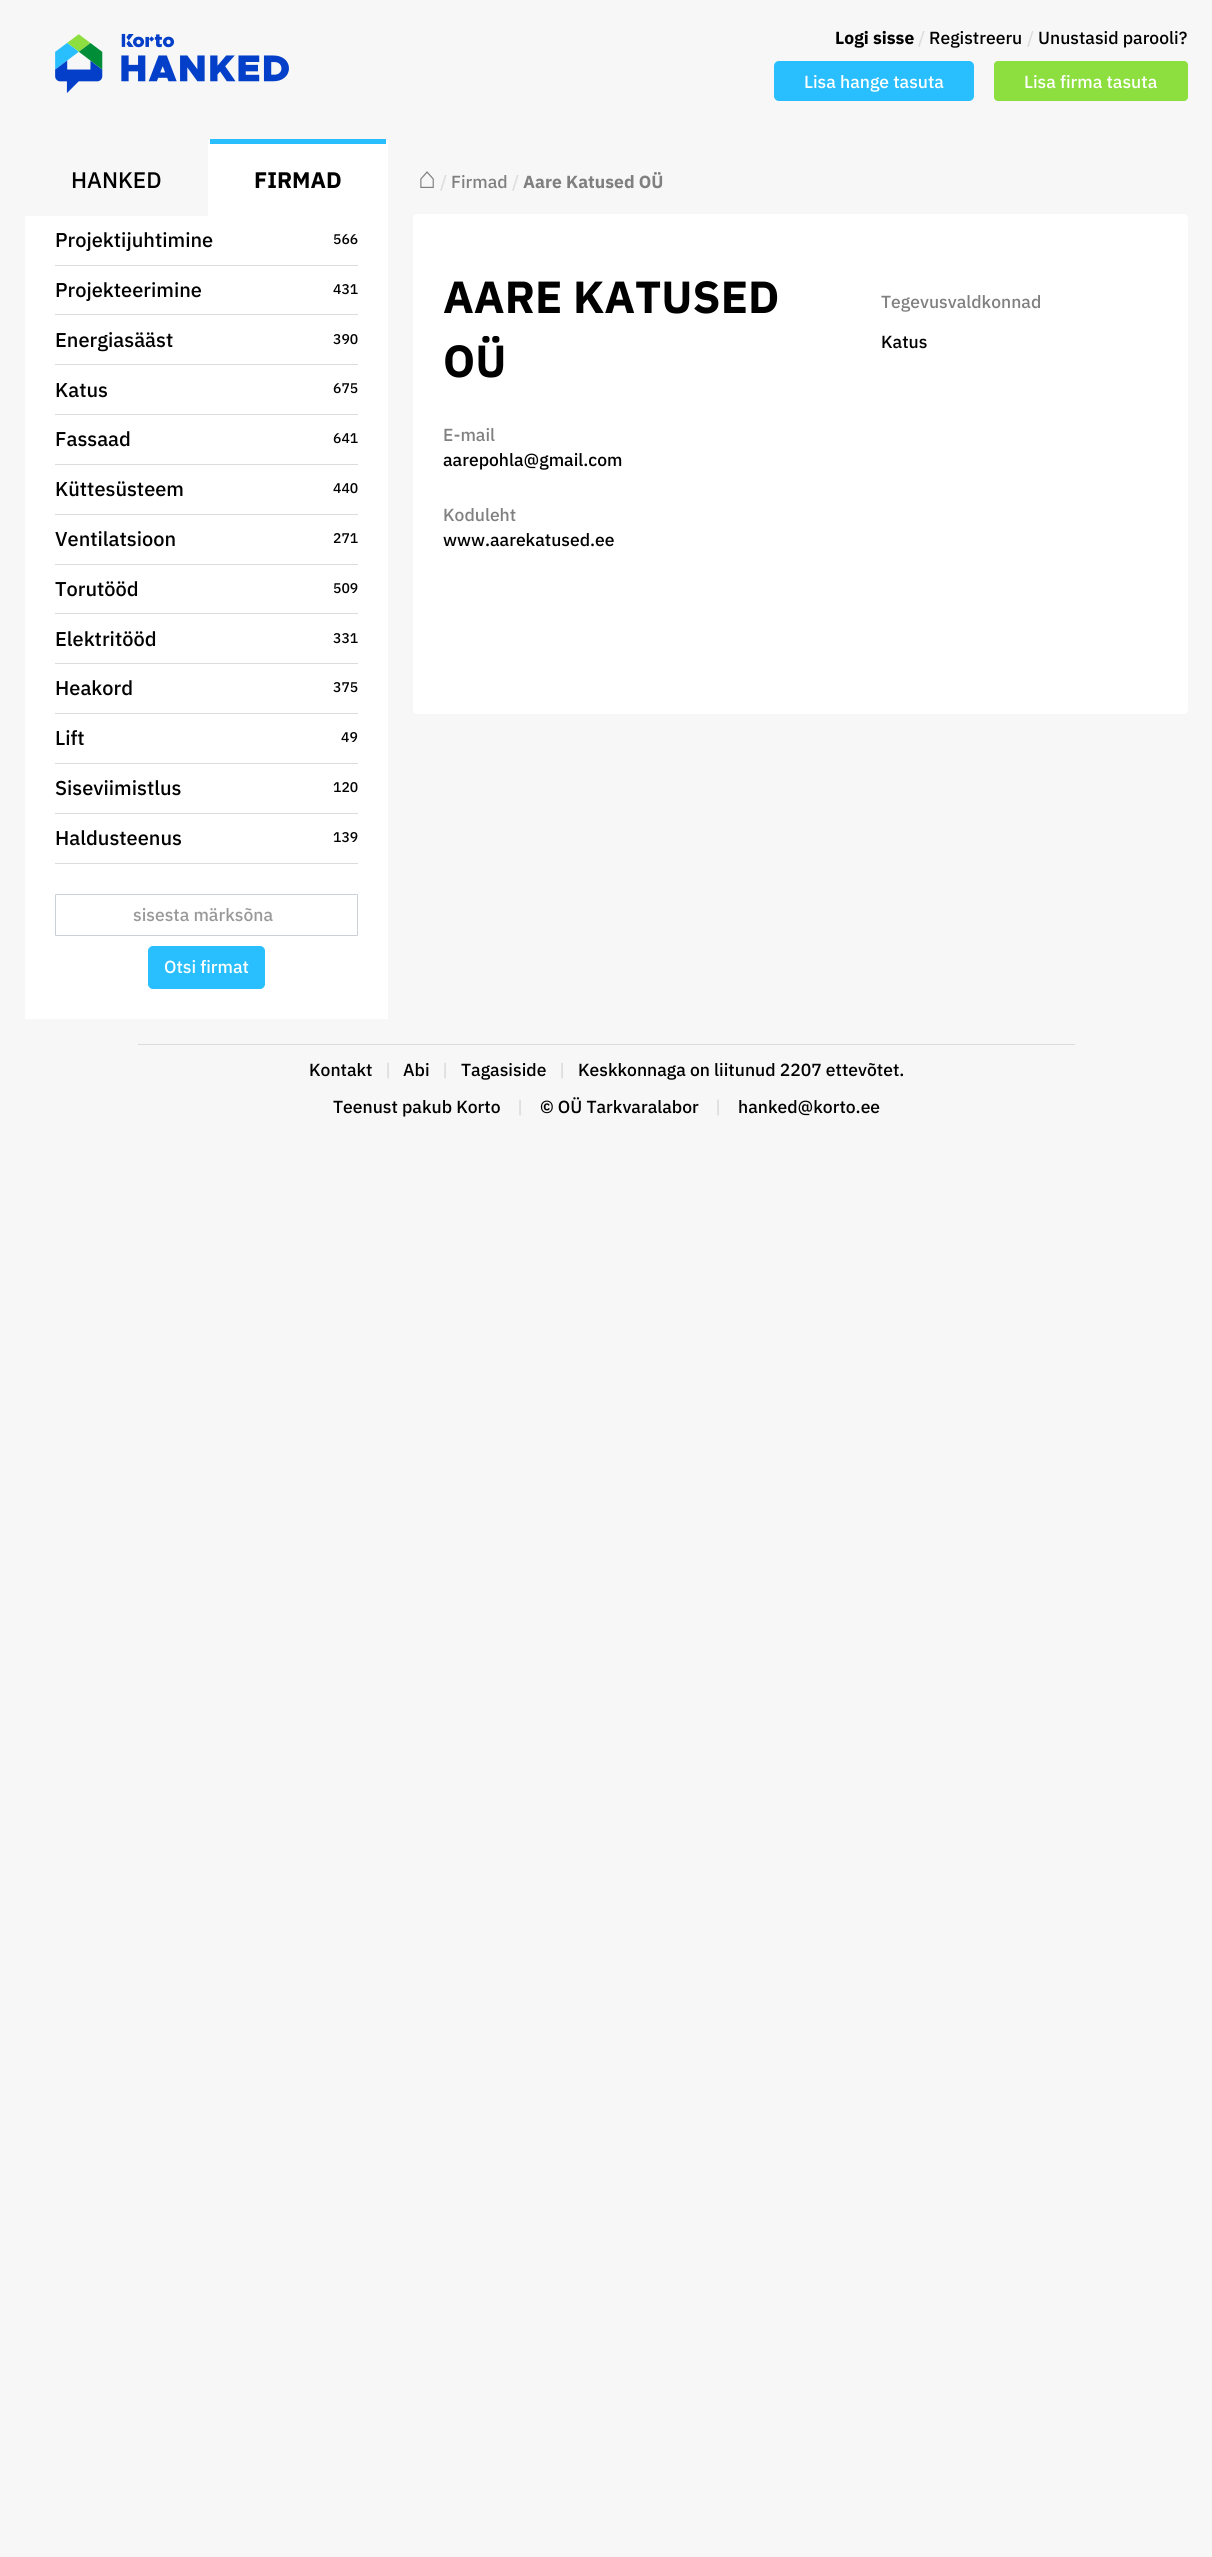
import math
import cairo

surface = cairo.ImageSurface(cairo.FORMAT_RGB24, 1212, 2557)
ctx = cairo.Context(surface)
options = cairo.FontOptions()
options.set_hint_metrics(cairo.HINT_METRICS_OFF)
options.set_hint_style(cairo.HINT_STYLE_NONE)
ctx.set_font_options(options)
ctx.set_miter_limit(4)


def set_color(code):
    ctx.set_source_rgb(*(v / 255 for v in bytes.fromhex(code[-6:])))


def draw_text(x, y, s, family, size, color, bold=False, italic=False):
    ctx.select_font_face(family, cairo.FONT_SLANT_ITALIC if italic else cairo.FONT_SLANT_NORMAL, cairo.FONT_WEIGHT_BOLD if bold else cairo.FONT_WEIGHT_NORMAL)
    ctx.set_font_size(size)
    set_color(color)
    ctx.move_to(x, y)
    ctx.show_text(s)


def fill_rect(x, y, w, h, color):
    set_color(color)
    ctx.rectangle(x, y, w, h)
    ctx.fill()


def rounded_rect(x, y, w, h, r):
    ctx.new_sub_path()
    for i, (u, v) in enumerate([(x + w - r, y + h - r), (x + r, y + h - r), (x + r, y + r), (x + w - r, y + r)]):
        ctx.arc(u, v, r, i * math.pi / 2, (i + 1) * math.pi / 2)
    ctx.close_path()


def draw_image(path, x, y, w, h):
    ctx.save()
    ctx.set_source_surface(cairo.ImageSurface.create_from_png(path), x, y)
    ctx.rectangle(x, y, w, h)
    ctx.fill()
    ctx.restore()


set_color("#f7f7f7")
ctx.paint()
draw_image("assets/img1.png", 55, 33, 234, 60)
draw_text(835, 44, "Logi sisse", "IBM Plex Sans", 17.5, "#000000", bold=True)
draw_text(918, 44, "/", "IBM Plex Sans Medium", 17.5, "#dcdcdc")
draw_text(929, 44, "Registreeru", "IBM Plex Sans Medium", 17.5, "#000000")
draw_text(1027, 44, "/", "IBM Plex Sans Medium", 17.5, "#dcdcdc")
draw_text(1038, 44, "Unustasid parooli?", "IBM Plex Sans Medium", 17.5, "#000000")
set_color("#29bfff")
rounded_rect(774, 61, 200, 40, 5)
ctx.fill()
draw_text(804, 88, "Lisa hange tasuta", "IBM Plex Sans Medium", 17.5, "#ffffff")
set_color("#8cdf3f")
rounded_rect(994, 61, 194, 40, 4)
ctx.fill()
draw_text(1024, 88, "Lisa firma tasuta", "IBM Plex Sans Medium", 17.5, "#ffffff")
draw_text(71, 188, "HANKED", "IBM Plex Sans Medium", 22.5, "#000000")
set_color("#ffffff")
ctx.new_path()
ctx.move_to(212, 139)
ctx.line_to(384, 139)
ctx.curve_to(386, 139, 388, 141, 388, 143)
ctx.line_to(388, 216)
ctx.line_to(208, 216)
ctx.line_to(208, 143)
ctx.curve_to(208, 141, 210, 139, 212, 139)
ctx.close_path()
ctx.fill()
fill_rect(210, 139, 176, 5, "#29bfff")
draw_text(254, 188, "FIRMAD", "IBM Plex Sans", 22.5, "#000000", bold=True)
fill_rect(25, 216, 363, 803, "#ffffff")
fill_rect(55, 265, 303, 1, "#dcdcdc")
draw_text(55, 247, "Projektijuhtimine", "IBM Plex Sans Medium", 20, "#000000")
draw_text(333, 244, "566", "IBM Plex Sans Medium", 14, "#000000")
fill_rect(55, 314, 303, 1, "#dcdcdc")
draw_text(55, 297, "Projekteerimine", "IBM Plex Sans Medium", 20, "#000000")
draw_text(333, 294, "431", "IBM Plex Sans Medium", 14, "#000000")
fill_rect(55, 364, 303, 1, "#dcdcdc")
draw_text(55, 347, "Energiasääst", "IBM Plex Sans Medium", 20, "#000000")
draw_text(333, 344, "390", "IBM Plex Sans Medium", 14, "#000000")
fill_rect(55, 414, 303, 1, "#dcdcdc")
draw_text(55, 397, "Katus", "IBM Plex Sans Medium", 20, "#000000")
draw_text(333, 393, "675", "IBM Plex Sans Medium", 14, "#000000")
fill_rect(55, 464, 303, 1, "#dcdcdc")
draw_text(55, 446, "Fassaad", "IBM Plex Sans Medium", 20, "#000000")
draw_text(333, 443, "641", "IBM Plex Sans Medium", 14, "#000000")
fill_rect(55, 514, 303, 1, "#dcdcdc")
draw_text(55, 496, "Küttesüsteem", "IBM Plex Sans Medium", 20, "#000000")
draw_text(333, 493, "440", "IBM Plex Sans Medium", 14, "#000000")
fill_rect(55, 564, 303, 1, "#dcdcdc")
draw_text(55, 546, "Ventilatsioon", "IBM Plex Sans Medium", 20, "#000000")
draw_text(333, 543, "271", "IBM Plex Sans Medium", 14, "#000000")
fill_rect(55, 613, 303, 1, "#dcdcdc")
draw_text(55, 596, "Torutööd", "IBM Plex Sans Medium", 20, "#000000")
draw_text(333, 593, "509", "IBM Plex Sans Medium", 14, "#000000")
fill_rect(55, 663, 303, 1, "#dcdcdc")
draw_text(55, 646, "Elektritööd", "IBM Plex Sans Medium", 20, "#000000")
draw_text(333, 643, "331", "IBM Plex Sans Medium", 14, "#000000")
fill_rect(55, 713, 303, 1, "#dcdcdc")
draw_text(55, 695, "Heakord", "IBM Plex Sans Medium", 20, "#000000")
draw_text(333, 692, "375", "IBM Plex Sans Medium", 14, "#000000")
fill_rect(55, 763, 303, 1, "#dcdcdc")
draw_text(55, 745, "Lift", "IBM Plex Sans Medium", 20, "#000000")
draw_text(341, 742, "49", "IBM Plex Sans Medium", 14, "#000000")
fill_rect(55, 813, 303, 1, "#dcdcdc")
draw_text(55, 795, "Siseviimistlus", "IBM Plex Sans Medium", 20, "#000000")
draw_text(333, 792, "120", "IBM Plex Sans Medium", 14, "#000000")
fill_rect(55, 863, 303, 1, "#dcdcdc")
draw_text(55, 845, "Haldusteenus", "IBM Plex Sans Medium", 20, "#000000")
draw_text(333, 842, "139", "IBM Plex Sans Medium", 14, "#000000")
rounded_rect(55.5, 894.5, 302, 41, 0.5)
set_color("#ccd1d9")
ctx.set_line_width(1)
ctx.stroke()
draw_text(133, 921, "sisesta märksõna", "IBM Plex Sans Medium", 17.5, "#999999")
set_color("#29bfff")
rounded_rect(148.5, 946.5, 116, 42, 4.5)
ctx.fill_preserve()
ctx.stroke()
draw_text(164, 973, "Otsi firmat", "IBM Plex Sans Medium", 17.5, "#ffffff")
draw_text(418, 188, "⌂", "Liberation Sans", 30, "#808080")
draw_text(440, 188, "/", "IBM Plex Sans Medium", 17.5, "#dcdcdc")
draw_text(451, 188, "Firmad", "IBM Plex Sans Medium", 17.5, "#808080")
draw_text(512, 188, "/", "IBM Plex Sans Medium", 17.5, "#dcdcdc")
draw_text(523, 188, "Aare Katused OÜ", "IBM Plex Sans", 17.5, "#808080", bold=True)
set_color("#ffffff")
rounded_rect(413, 214, 775, 500, 4)
ctx.fill()
draw_text(443, 313, "AARE KATUSED", "IBM Plex Sans", 45, "#000000", bold=True)
draw_text(443, 377, "OÜ", "IBM Plex Sans", 45, "#000000", bold=True)
draw_text(443, 441, "E-mail", "IBM Plex Sans Medium", 17.5, "#808080")
draw_text(443, 466, "aarepohla@gmail.com", "IBM Plex Sans Medium", 17.5, "#000000")
draw_text(443, 521, "Koduleht", "IBM Plex Sans Medium", 17.5, "#808080")
draw_text(443, 546, "www.aarekatused.ee", "IBM Plex Sans Medium", 17.5, "#000000")
draw_text(881, 308, "Tegevusvaldkonnad", "IBM Plex Sans Medium", 17.5, "#808080")
draw_text(881, 348, "Katus", "IBM Plex Sans Medium", 17.5, "#000000")
fill_rect(138, 1044, 937, 1, "#dcdcdc")
draw_text(309, 1076, "Kontakt", "IBM Plex Sans Medium", 17.5, "#000000")
draw_text(385, 1076, "|", "IBM Plex Sans Medium", 17.5, "#dcdcdc")
draw_text(403, 1076, "Abi", "IBM Plex Sans Medium", 17.5, "#000000")
draw_text(442, 1076, "|", "IBM Plex Sans Medium", 17.5, "#dcdcdc")
draw_text(461, 1076, "Tagasiside", "IBM Plex Sans Medium", 17.5, "#000000")
draw_text(559, 1076, "|", "IBM Plex Sans Medium", 17.5, "#dcdcdc")
draw_text(578, 1076, "Keskkonnaga on liitunud 2207 ettevõtet.", "IBM Plex Sans Medium", 17.5, "#000000")
draw_text(333, 1113, "Teenust pakub Korto", "IBM Plex Sans Medium", 17.5, "#000000")
draw_text(517, 1113, "|", "IBM Plex Sans Medium", 17.5, "#dcdcdc")
draw_text(540, 1113, "© OÜ Tarkvaralabor", "IBM Plex Sans Medium", 17.5, "#000000")
draw_text(715, 1113, "|", "IBM Plex Sans Medium", 17.5, "#dcdcdc")
draw_text(738, 1113, "hanked@korto.ee", "IBM Plex Sans Medium", 17.5, "#000000")
surface.write_to_png("output.png")
